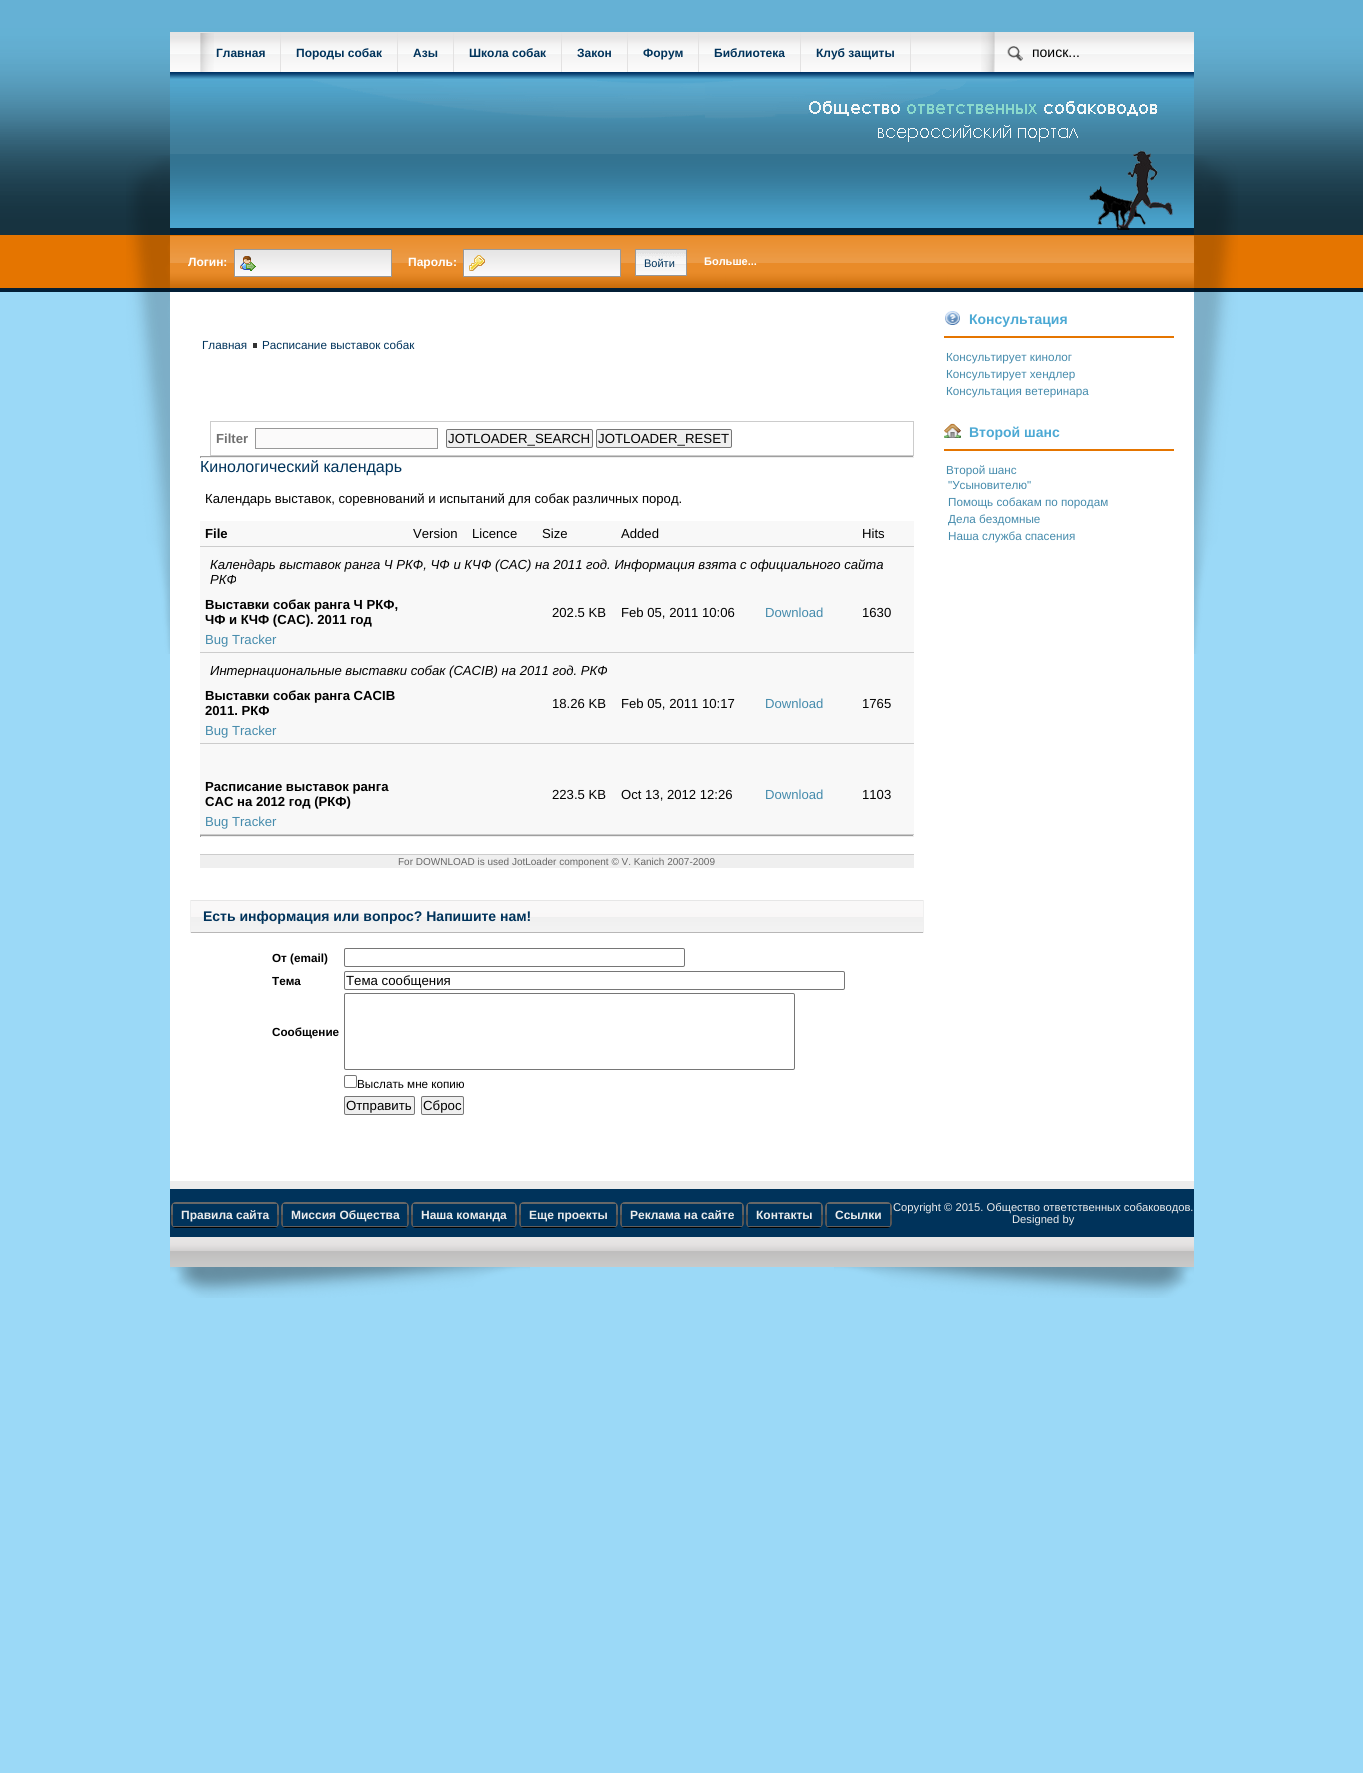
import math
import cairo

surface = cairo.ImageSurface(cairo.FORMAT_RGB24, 1363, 1773)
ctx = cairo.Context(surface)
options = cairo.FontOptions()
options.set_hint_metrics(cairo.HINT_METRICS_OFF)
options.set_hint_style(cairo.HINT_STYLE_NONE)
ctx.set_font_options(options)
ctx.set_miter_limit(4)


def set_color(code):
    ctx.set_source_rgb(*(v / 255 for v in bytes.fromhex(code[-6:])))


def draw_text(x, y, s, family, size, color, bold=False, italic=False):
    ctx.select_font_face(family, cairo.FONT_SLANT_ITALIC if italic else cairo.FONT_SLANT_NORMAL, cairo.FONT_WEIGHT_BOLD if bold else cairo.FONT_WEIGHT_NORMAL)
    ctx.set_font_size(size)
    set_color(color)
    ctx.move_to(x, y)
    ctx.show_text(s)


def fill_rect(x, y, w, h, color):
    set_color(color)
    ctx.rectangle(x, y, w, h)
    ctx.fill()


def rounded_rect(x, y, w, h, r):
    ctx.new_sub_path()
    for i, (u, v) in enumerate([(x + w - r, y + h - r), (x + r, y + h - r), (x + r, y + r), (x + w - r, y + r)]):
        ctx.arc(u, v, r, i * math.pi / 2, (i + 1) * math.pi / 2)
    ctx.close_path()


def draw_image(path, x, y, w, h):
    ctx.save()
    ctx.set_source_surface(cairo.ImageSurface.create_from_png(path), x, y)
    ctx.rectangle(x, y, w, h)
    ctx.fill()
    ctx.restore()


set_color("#9bd9f7")
ctx.paint()
fill_rect(0, 0, 1363, 235, "#4ca9d4")
draw_image("assets/img1.png", 0, 0, 1363, 235)
fill_rect(0, 235, 1363, 53, "#e57500")
fill_rect(0, 288, 1363, 4, "#031f36")
draw_image("assets/img2.png", 126, 155, 44, 499)
draw_image("assets/img3.png", 170, 32, 1024, 40)
draw_image("assets/img4.png", 200, 33, 14, 39)
fill_rect(280, 32, 1, 40, "#e3e2e2")
draw_text(216, 57, "Главная", "Liberation Sans", 12, "#00335b", bold=True)
fill_rect(397, 32, 1, 40, "#e3e2e2")
draw_text(296, 57, "Породы собак", "Liberation Sans", 12, "#00335b", bold=True)
fill_rect(453, 32, 1, 40, "#e3e2e2")
draw_text(413, 57, "Азы", "Liberation Sans", 12, "#00335b", bold=True)
fill_rect(561, 32, 1, 40, "#e3e2e2")
draw_text(469, 57, "Школа собак", "Liberation Sans", 12, "#00335b", bold=True)
fill_rect(627, 32, 1, 40, "#e3e2e2")
draw_text(577, 57, "Закон", "Liberation Sans", 12, "#00335b", bold=True)
fill_rect(698, 32, 1, 40, "#e3e2e2")
draw_text(643, 57, "Форум", "Liberation Sans", 12, "#00335b", bold=True)
fill_rect(800, 32, 1, 40, "#e3e2e2")
draw_text(714, 57, "Библиотека", "Liberation Sans", 12, "#00335b", bold=True)
fill_rect(910, 32, 1, 40, "#e3e2e2")
draw_text(816, 57, "Клуб защиты", "Liberation Sans", 12, "#00335b", bold=True)
draw_image("assets/img5.png", 981, 32, 42, 40)
draw_text(1032, 57, "поиск...", "Liberation Sans", 14, "#000000")
draw_image("assets/img6.png", 170, 236, 1024, 52)
draw_image("assets/img7.png", 170, 72, 1024, 163)
draw_text(188, 266, "Логин:", "Liberation Sans", 12, "#ffffff", bold=True)
draw_image("assets/img8.png", 235, 250, 156, 26)
ctx.rectangle(234.5, 249.5, 157, 27)
set_color("#999999")
ctx.set_line_width(1)
ctx.stroke()
draw_text(408, 266, "Пароль:", "Liberation Sans", 12, "#ffffff", bold=True)
draw_image("assets/img9.png", 464, 250, 156, 26)
ctx.rectangle(463.5, 249.5, 157, 27)
set_color("#999999")
ctx.stroke()
draw_image("assets/img10.png", 636, 250, 50, 25)
ctx.rectangle(635.5, 249.5, 51, 26)
ctx.stroke()
draw_text(644, 267, "Войти", "Liberation Sans", 11, "#00335b")
draw_text(704, 265, "Больше...", "Liberation Sans", 11, "#ffffff", bold=True)
fill_rect(170, 292, 1024, 889, "#ffffff")
draw_text(202, 349, "Главная", "Liberation Sans", 11.7, "#00335b")
draw_text(262, 349, "Расписание выставок собак", "Liberation Sans", 11.7, "#00335b")
fill_rect(253, 343, 4, 5, "#333333")
ctx.rectangle(210.5, 421.5, 703, 34)
set_color("#cccccc")
ctx.stroke()
draw_text(216, 443, "Filter", "Liberation Sans", 13.12, "#707070", bold=True)
set_color("#fbfafa")
ctx.rectangle(255.5, 428.5, 182, 20)
ctx.fill_preserve()
set_color("#999999")
ctx.stroke()
set_color("#efefef")
rounded_rect(446.5, 429.5, 146, 18, 1.5)
ctx.fill_preserve()
set_color("#767676")
ctx.stroke()
draw_text(448, 443, "JOTLOADER_SEARCH", "Liberation Sans", 13.25, "#000000")
set_color("#efefef")
rounded_rect(596.5, 429.5, 135, 18, 1.5)
ctx.fill_preserve()
set_color("#767676")
ctx.stroke()
draw_text(598, 443, "JOTLOADER_RESET", "Liberation Sans", 13.25, "#000000")
fill_rect(200, 456, 714, 1, "#9f9f9f")
fill_rect(913, 456, 1, 2, "#eeeeee")
fill_rect(200, 457, 714, 1, "#eeeeee")
fill_rect(200, 456, 1, 2, "#9f9f9f")
draw_text(200, 472, "Кинологический календарь", "Liberation Sans", 16, "#00335b")
draw_text(205, 503, "Календарь выставок, соревнований и испытаний для собак различных пород.", "Liberation Sans", 13.12, "#000000")
fill_rect(200, 521, 714, 25, "#f8f8f8")
fill_rect(200, 546, 714, 1, "#cccccc")
draw_text(205, 538, "File", "Liberation Sans", 13.12, "#000000", bold=True)
draw_text(413, 538, "Version", "Liberation Sans", 13.12, "#000000")
draw_text(472, 538, "Licence", "Liberation Sans", 13.12, "#000000")
draw_text(542, 538, "Size", "Liberation Sans", 13.12, "#000000")
draw_text(621, 538, "Added", "Liberation Sans", 13.12, "#000000")
draw_text(862, 538, "Hits", "Liberation Sans", 13.12, "#000000")
fill_rect(200, 547, 714, 105, "#f8f8f8")
fill_rect(200, 652, 714, 1, "#cccccc")
draw_text(210, 569, "Календарь выставок ранга Ч РКФ, ЧФ и КЧФ (CAC) на 2011 год. Информация взята с официального сайта", "Liberation Sans", 13.12, "#000000", italic=True)
draw_text(210, 584, "РКФ", "Liberation Sans", 13.12, "#000000", italic=True)
draw_text(205, 609, "Выставки собак ранга Ч РКФ,", "Liberation Sans", 13.12, "#000000", bold=True)
draw_text(205, 624, "ЧФ и КЧФ (CAC). 2011 год", "Liberation Sans", 13.12, "#000000", bold=True)
draw_text(552, 617, "202.5 KB", "Liberation Sans", 13.12, "#000000")
draw_text(621, 617, "Feb 05, 2011 10:06", "Liberation Sans", 13.12, "#000000")
draw_text(765, 617, "Download", "Liberation Sans", 13.12, "#458bac")
draw_text(862, 617, "1630", "Liberation Sans", 13.12, "#000000")
draw_text(205, 644, "Bug Tracker", "Liberation Sans", 13.12, "#458bac")
fill_rect(200, 653, 714, 90, "#f8f8f8")
fill_rect(200, 743, 714, 1, "#cccccc")
draw_text(210, 675, "Интернациональные выставки собак (CACIB) на 2011 год. РКФ", "Liberation Sans", 13.12, "#000000", italic=True)
draw_text(205, 700, "Выставки собак ранга CACIB", "Liberation Sans", 13.12, "#000000", bold=True)
draw_text(205, 715, "2011. РКФ", "Liberation Sans", 13.12, "#000000", bold=True)
draw_text(552, 708, "18.26 KB", "Liberation Sans", 13.12, "#000000")
draw_text(621, 708, "Feb 05, 2011 10:17", "Liberation Sans", 13.12, "#000000")
draw_text(765, 708, "Download", "Liberation Sans", 13.12, "#458bac")
draw_text(862, 708, "1765", "Liberation Sans", 13.12, "#000000")
draw_text(205, 735, "Bug Tracker", "Liberation Sans", 13.12, "#458bac")
fill_rect(200, 744, 714, 90, "#f8f8f8")
fill_rect(200, 834, 714, 1, "#cccccc")
draw_text(205, 791, "Расписание выставок ранга", "Liberation Sans", 13.12, "#000000", bold=True)
draw_text(205, 806, "САС на 2012 год (РКФ)", "Liberation Sans", 13.12, "#000000", bold=True)
draw_text(552, 799, "223.5 KB", "Liberation Sans", 13.12, "#000000")
draw_text(621, 799, "Oct 13, 2012 12:26", "Liberation Sans", 13.12, "#000000")
draw_text(765, 799, "Download", "Liberation Sans", 13.12, "#458bac")
draw_text(862, 799, "1103", "Liberation Sans", 13.12, "#000000")
draw_text(205, 826, "Bug Tracker", "Liberation Sans", 13.12, "#458bac")
fill_rect(200, 835, 714, 1, "#9f9f9f")
fill_rect(913, 835, 1, 2, "#eeeeee")
fill_rect(200, 836, 714, 1, "#eeeeee")
fill_rect(200, 835, 1, 2, "#9f9f9f")
fill_rect(200, 855, 714, 13, "#efefef")
fill_rect(200, 854, 714, 1, "#cccccc")
draw_text(398, 865, "For DOWNLOAD is used JotLoader component © V. Kanich 2007-2009", "Liberation Sans", 10, "#666666")
draw_image("assets/img11.png", 191, 900, 732, 33)
fill_rect(923, 900, 1, 33, "#f0f0f0")
fill_rect(190, 900, 1, 33, "#f0f0f0")
draw_text(203, 921, "Есть информация или вопрос? Напишите нам!", "Liberation Sans", 14, "#00335b", bold=True)
draw_text(272, 962, "От (email)", "Liberation Sans", 11.7, "#000000", bold=True)
rounded_rect(344.5, 948.5, 340, 18, 1.5)
set_color("#767676")
ctx.stroke()
draw_text(272, 985, "Тема", "Liberation Sans", 11.7, "#000000", bold=True)
rounded_rect(344.5, 971.5, 500, 18, 1.5)
set_color("#767676")
ctx.stroke()
draw_text(346, 985, "Тема сообщения", "Liberation Sans", 13.25, "#000000")
draw_text(272, 1036, "Сообщение", "Liberation Sans", 11.7, "#000000", bold=True)
rounded_rect(344.5, 993.5, 450, 76, 1.5)
set_color("#767676")
ctx.stroke()
rounded_rect(344.5, 1075.5, 12, 12, 1.5)
ctx.stroke()
draw_text(357, 1088, "Выслать мне копию", "Liberation Sans", 11.7, "#000000")
set_color("#efefef")
rounded_rect(344.5, 1096.5, 70, 18, 1.5)
ctx.fill_preserve()
set_color("#767676")
ctx.stroke()
draw_text(346, 1110, "Отправить", "Liberation Sans", 13.25, "#000000")
set_color("#efefef")
rounded_rect(421.5, 1096.5, 42, 18, 1.5)
ctx.fill_preserve()
set_color("#767676")
ctx.stroke()
draw_text(423, 1110, "Сброс", "Liberation Sans", 13.25, "#000000")
draw_image("assets/img12.png", 945, 311, 15, 14)
fill_rect(944, 336, 230, 2, "#e57500")
draw_text(969, 324, "Консультация", "Liberation Sans", 14, "#4ca9d4", bold=True)
draw_text(946, 361, "Консультирует кинолог", "Liberation Sans", 11.7, "#458bac")
draw_text(946, 378, "Консультирует хендлер", "Liberation Sans", 11.7, "#458bac")
draw_text(946, 395, "Консультация ветеринара", "Liberation Sans", 11.7, "#458bac")
draw_image("assets/img13.png", 944, 423, 17, 15)
fill_rect(944, 449, 230, 2, "#e57500")
draw_text(969, 437, "Второй шанс", "Liberation Sans", 14, "#4ca9d4", bold=True)
draw_text(946, 474, "Второй шанс", "Liberation Sans", 11.7, "#458bac")
draw_text(948, 489, "\"Усыновителю\"", "Liberation Sans", 11.7, "#458bac")
draw_text(948, 506, "Помощь собакам по породам", "Liberation Sans", 11.7, "#458bac")
draw_text(948, 523, "Дела бездомные", "Liberation Sans", 11.7, "#458bac")
draw_text(948, 540, "Наша служба спасения", "Liberation Sans", 11.7, "#458bac")
fill_rect(170, 1189, 1024, 48, "#00335b")
fill_rect(170, 1181, 1024, 8, "#ededed")
draw_text(893, 1211, "Copyright © 2015. Общество ответственных собаководов.", "Liberation Sans", 11.2, "#ececec")
set_color("#000000")
rounded_rect(171, 1202, 108, 26, 5)
ctx.fill()
draw_image("assets/img14.png", 171, 1202, 108, 25)
fill_rect(173, 1204, 104, 22, "#00335b")
draw_text(181, 1219, "Правила сайта", "Liberation Sans", 12, "#ececec", bold=True)
set_color("#000000")
rounded_rect(281, 1202, 128, 26, 5)
ctx.fill()
draw_image("assets/img15.png", 281, 1202, 128, 25)
fill_rect(283, 1204, 124, 22, "#00335b")
draw_text(291, 1219, "Миссия Общества", "Liberation Sans", 12, "#ececec", bold=True)
set_color("#000000")
rounded_rect(411, 1202, 106, 26, 5)
ctx.fill()
draw_image("assets/img16.png", 411, 1202, 106, 25)
fill_rect(413, 1204, 102, 22, "#00335b")
draw_text(421, 1219, "Наша команда", "Liberation Sans", 12, "#ececec", bold=True)
set_color("#000000")
rounded_rect(519, 1202, 99, 26, 5)
ctx.fill()
draw_image("assets/img17.png", 519, 1202, 99, 25)
fill_rect(521, 1204, 95, 22, "#00335b")
draw_text(529, 1219, "Еще проекты", "Liberation Sans", 12, "#ececec", bold=True)
set_color("#000000")
rounded_rect(620, 1202, 124, 26, 5)
ctx.fill()
draw_image("assets/img18.png", 620, 1202, 124, 25)
fill_rect(622, 1204, 120, 22, "#00335b")
draw_text(630, 1219, "Реклама на сайте", "Liberation Sans", 12, "#ececec", bold=True)
set_color("#000000")
rounded_rect(746, 1202, 77, 26, 5)
ctx.fill()
draw_image("assets/img19.png", 746, 1202, 77, 25)
fill_rect(748, 1204, 73, 22, "#00335b")
draw_text(756, 1219, "Контакты", "Liberation Sans", 12, "#ececec", bold=True)
set_color("#000000")
rounded_rect(825, 1202, 67, 26, 5)
ctx.fill()
draw_image("assets/img20.png", 825, 1202, 67, 25)
fill_rect(827, 1204, 63, 22, "#00335b")
draw_text(835, 1219, "Ссылки", "Liberation Sans", 12, "#ececec", bold=True)
draw_text(1012, 1223, "Designed by", "Liberation Sans", 11.2, "#ececec")
draw_image("assets/img21.png", 170, 1237, 1024, 30)
draw_image("assets/img22.png", 170, 1267, 360, 31)
draw_image("assets/img23.png", 834, 1267, 360, 31)
draw_image("assets/img24.png", 1194, 155, 44, 499)
surface.write_to_png("output.png")
